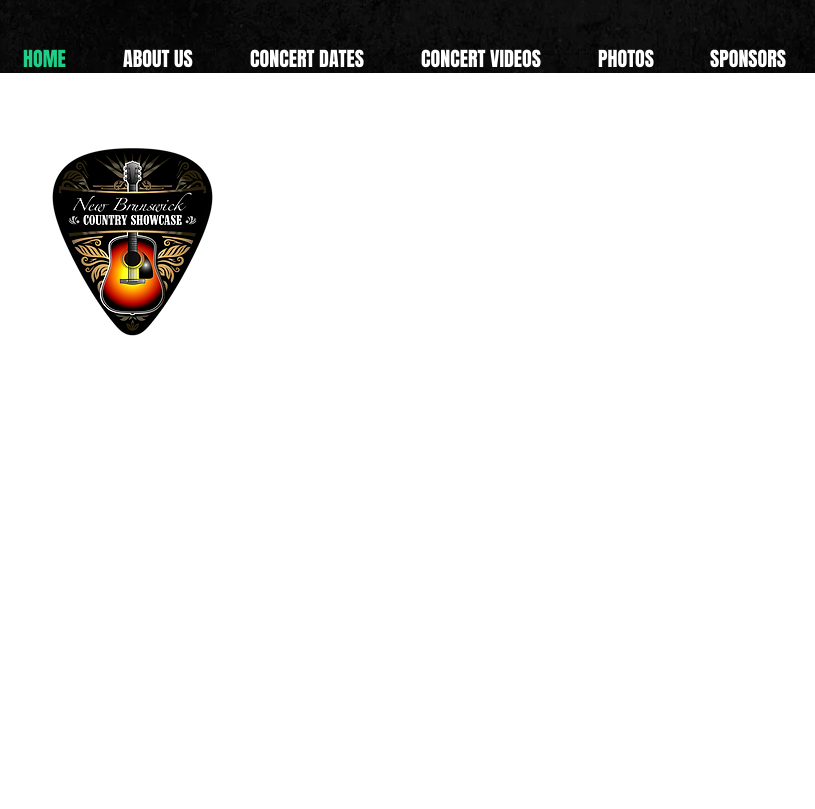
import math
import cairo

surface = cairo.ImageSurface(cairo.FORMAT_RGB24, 815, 809)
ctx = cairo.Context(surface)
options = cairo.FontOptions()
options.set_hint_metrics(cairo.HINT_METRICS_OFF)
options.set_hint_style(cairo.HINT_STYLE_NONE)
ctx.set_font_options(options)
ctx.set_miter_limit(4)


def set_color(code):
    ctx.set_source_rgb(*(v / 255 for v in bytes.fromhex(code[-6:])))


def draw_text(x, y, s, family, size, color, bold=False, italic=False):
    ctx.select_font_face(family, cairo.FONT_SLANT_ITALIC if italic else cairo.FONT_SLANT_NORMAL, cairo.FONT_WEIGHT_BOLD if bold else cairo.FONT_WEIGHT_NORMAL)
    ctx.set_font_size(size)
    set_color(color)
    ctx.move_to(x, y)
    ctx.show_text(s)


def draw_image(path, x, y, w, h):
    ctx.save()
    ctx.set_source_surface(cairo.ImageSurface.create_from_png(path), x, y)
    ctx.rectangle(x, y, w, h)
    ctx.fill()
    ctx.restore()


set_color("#ffffff")
ctx.paint()
draw_image("assets/img1.png", 0, 0, 815, 73)
draw_text(23, 67, "HOME", "Anton", 20, "#20ce88")
draw_text(123, 67, "ABOUT US", "Anton", 20, "#ffffff")
draw_text(250, 67, "CONCERT DATES", "Anton", 20, "#ffffff")
draw_text(421, 67, "CONCERT VIDEOS", "Anton", 20, "#ffffff")
draw_text(598, 67, "PHOTOS", "Anton", 20, "#ffffff")
draw_text(710, 67, "SPONSORS", "Anton", 20, "#ffffff")
draw_image("assets/img2.png", 52, 148, 161, 188)
surface.write_to_png("output.png")
